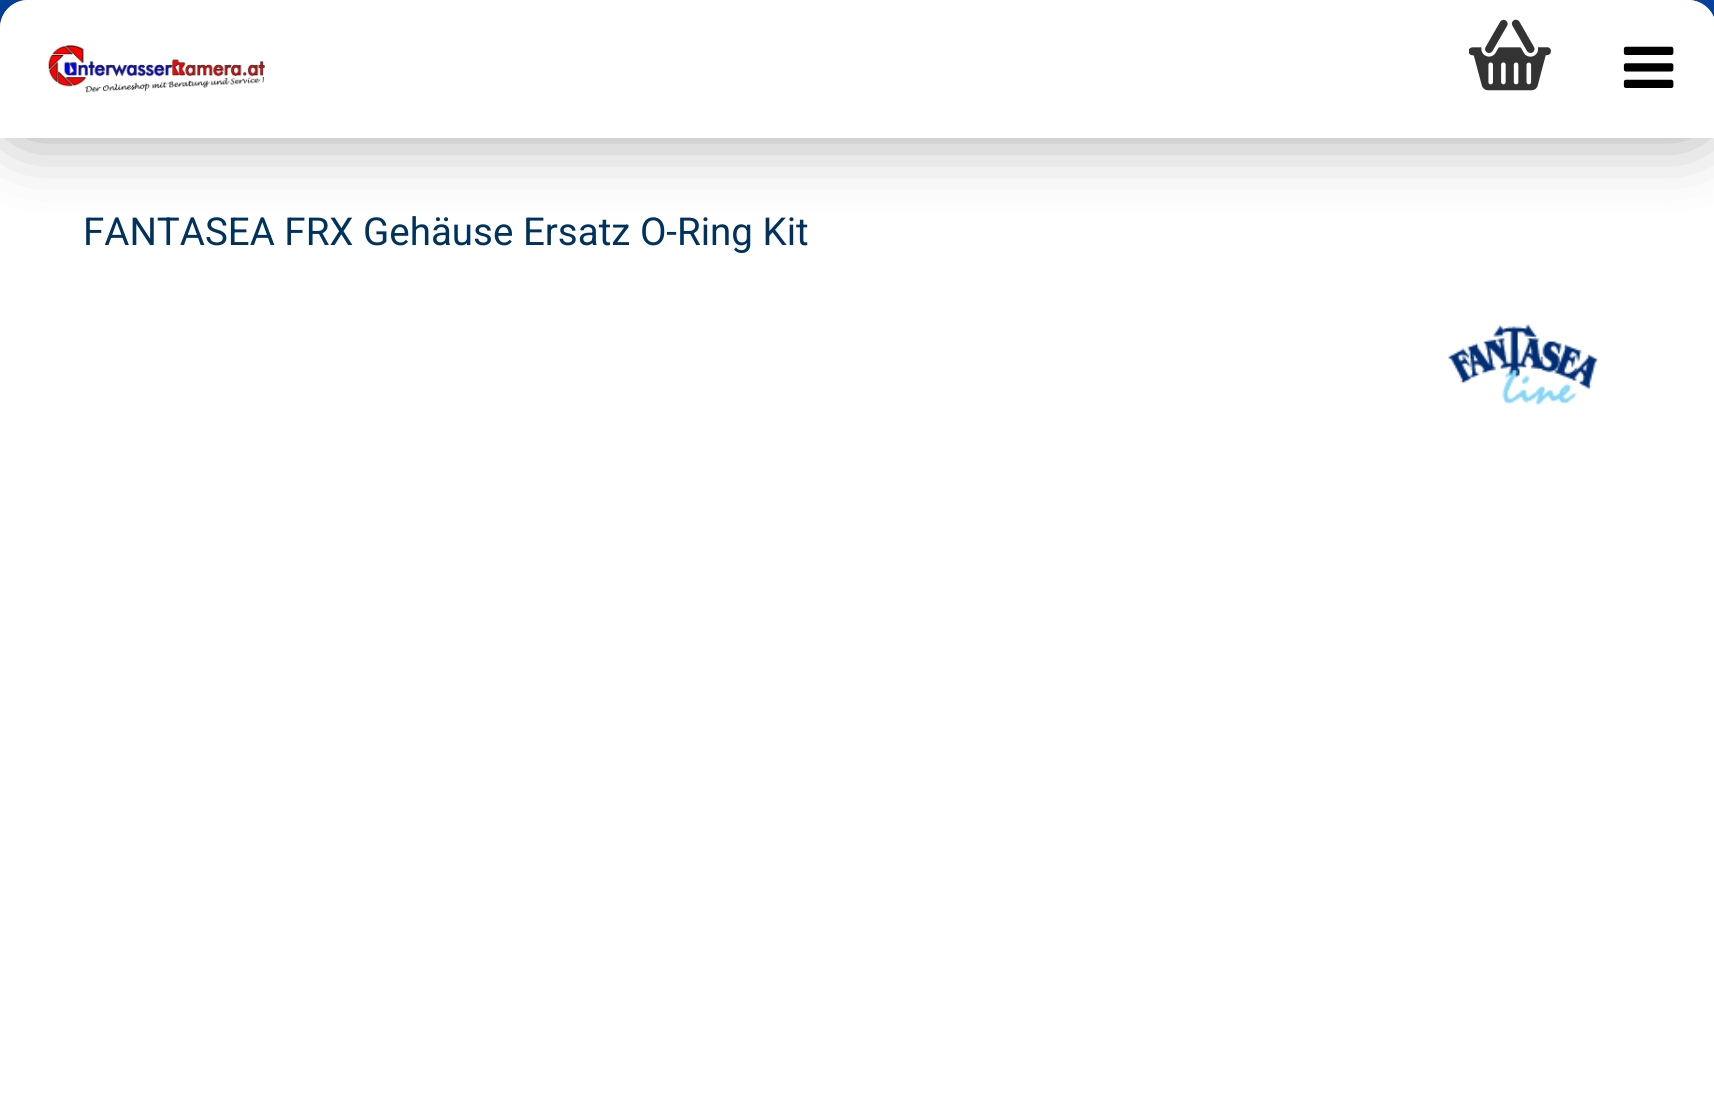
import math
import cairo

surface = cairo.ImageSurface(cairo.FORMAT_RGB24, 1714, 1103)
ctx = cairo.Context(surface)
options = cairo.FontOptions()
options.set_hint_metrics(cairo.HINT_METRICS_OFF)
options.set_hint_style(cairo.HINT_STYLE_NONE)
ctx.set_font_options(options)
ctx.set_miter_limit(4)


def set_color(code):
    ctx.set_source_rgb(*(v / 255 for v in bytes.fromhex(code[-6:])))


def draw_text(x, y, s, family, size, color, bold=False, italic=False):
    ctx.select_font_face(family, cairo.FONT_SLANT_ITALIC if italic else cairo.FONT_SLANT_NORMAL, cairo.FONT_WEIGHT_BOLD if bold else cairo.FONT_WEIGHT_NORMAL)
    ctx.set_font_size(size)
    set_color(color)
    ctx.move_to(x, y)
    ctx.show_text(s)


def rounded_rect(x, y, w, h, r):
    ctx.new_sub_path()
    for i, (u, v) in enumerate([(x + w - r, y + h - r), (x + r, y + h - r), (x + r, y + r), (x + w - r, y + r)]):
        ctx.arc(u, v, r, i * math.pi / 2, (i + 1) * math.pi / 2)
    ctx.close_path()


def draw_shadow(x, y, w, h, r, blur, alpha):
    ctx.push_group_with_content(cairo.CONTENT_ALPHA)
    ctx.set_operator(cairo.OPERATOR_SOURCE)
    for i in range(15, -16, -2):
        e = blur * i / 6
        if min(w, h) + 2 * e > 0:
            ctx.set_source_rgba(0, 0, 0, alpha * math.erfc((i - 1) / 8.5) / 2)
            rounded_rect(x - e, y - e, w + 2 * e, h + 2 * e, max(0, min(r + e + blur * .6, min(w, h) / 2 + e)))
            ctx.fill()
    ctx.mask(ctx.pop_group())


def draw_image(path, x, y, w, h):
    ctx.save()
    ctx.set_source_surface(cairo.ImageSurface.create_from_png(path), x, y)
    ctx.rectangle(x, y, w, h)
    ctx.fill()
    ctx.restore()


set_color("#ffffff")
ctx.paint()
draw_image("assets/img1.png", 0, 0, 1714, 28)
set_color("#ffffff")
rounded_rect(0, 0, 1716, 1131, 28)
ctx.fill()
set_color("#000000")
draw_shadow(0, 0, 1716, 138, 28, 34.5, 0.35)
set_color("#ffffff")
ctx.new_path()
ctx.move_to(28, 0)
ctx.line_to(1688, 0)
ctx.curve_to(1703.5, 0, 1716, 12.5, 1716, 28)
ctx.line_to(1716, 138)
ctx.line_to(0, 138)
ctx.line_to(0, 28)
ctx.curve_to(0, 12.5, 12.5, 0, 28, 0)
ctx.close_path()
ctx.fill()
draw_image("assets/img2.png", 48, 45, 217, 48)
draw_image("assets/img3.png", 1469, 19, 82, 72)
draw_image("assets/img4.png", 1623, 46, 51, 42)
draw_text(83, 245, "FANTASEA FRX Gehäuse Ersatz O-Ring Kit", "Roboto", 38.5, "#00325e")
draw_image("assets/img5.png", 1448, 324, 151, 82)
surface.write_to_png("output.png")
